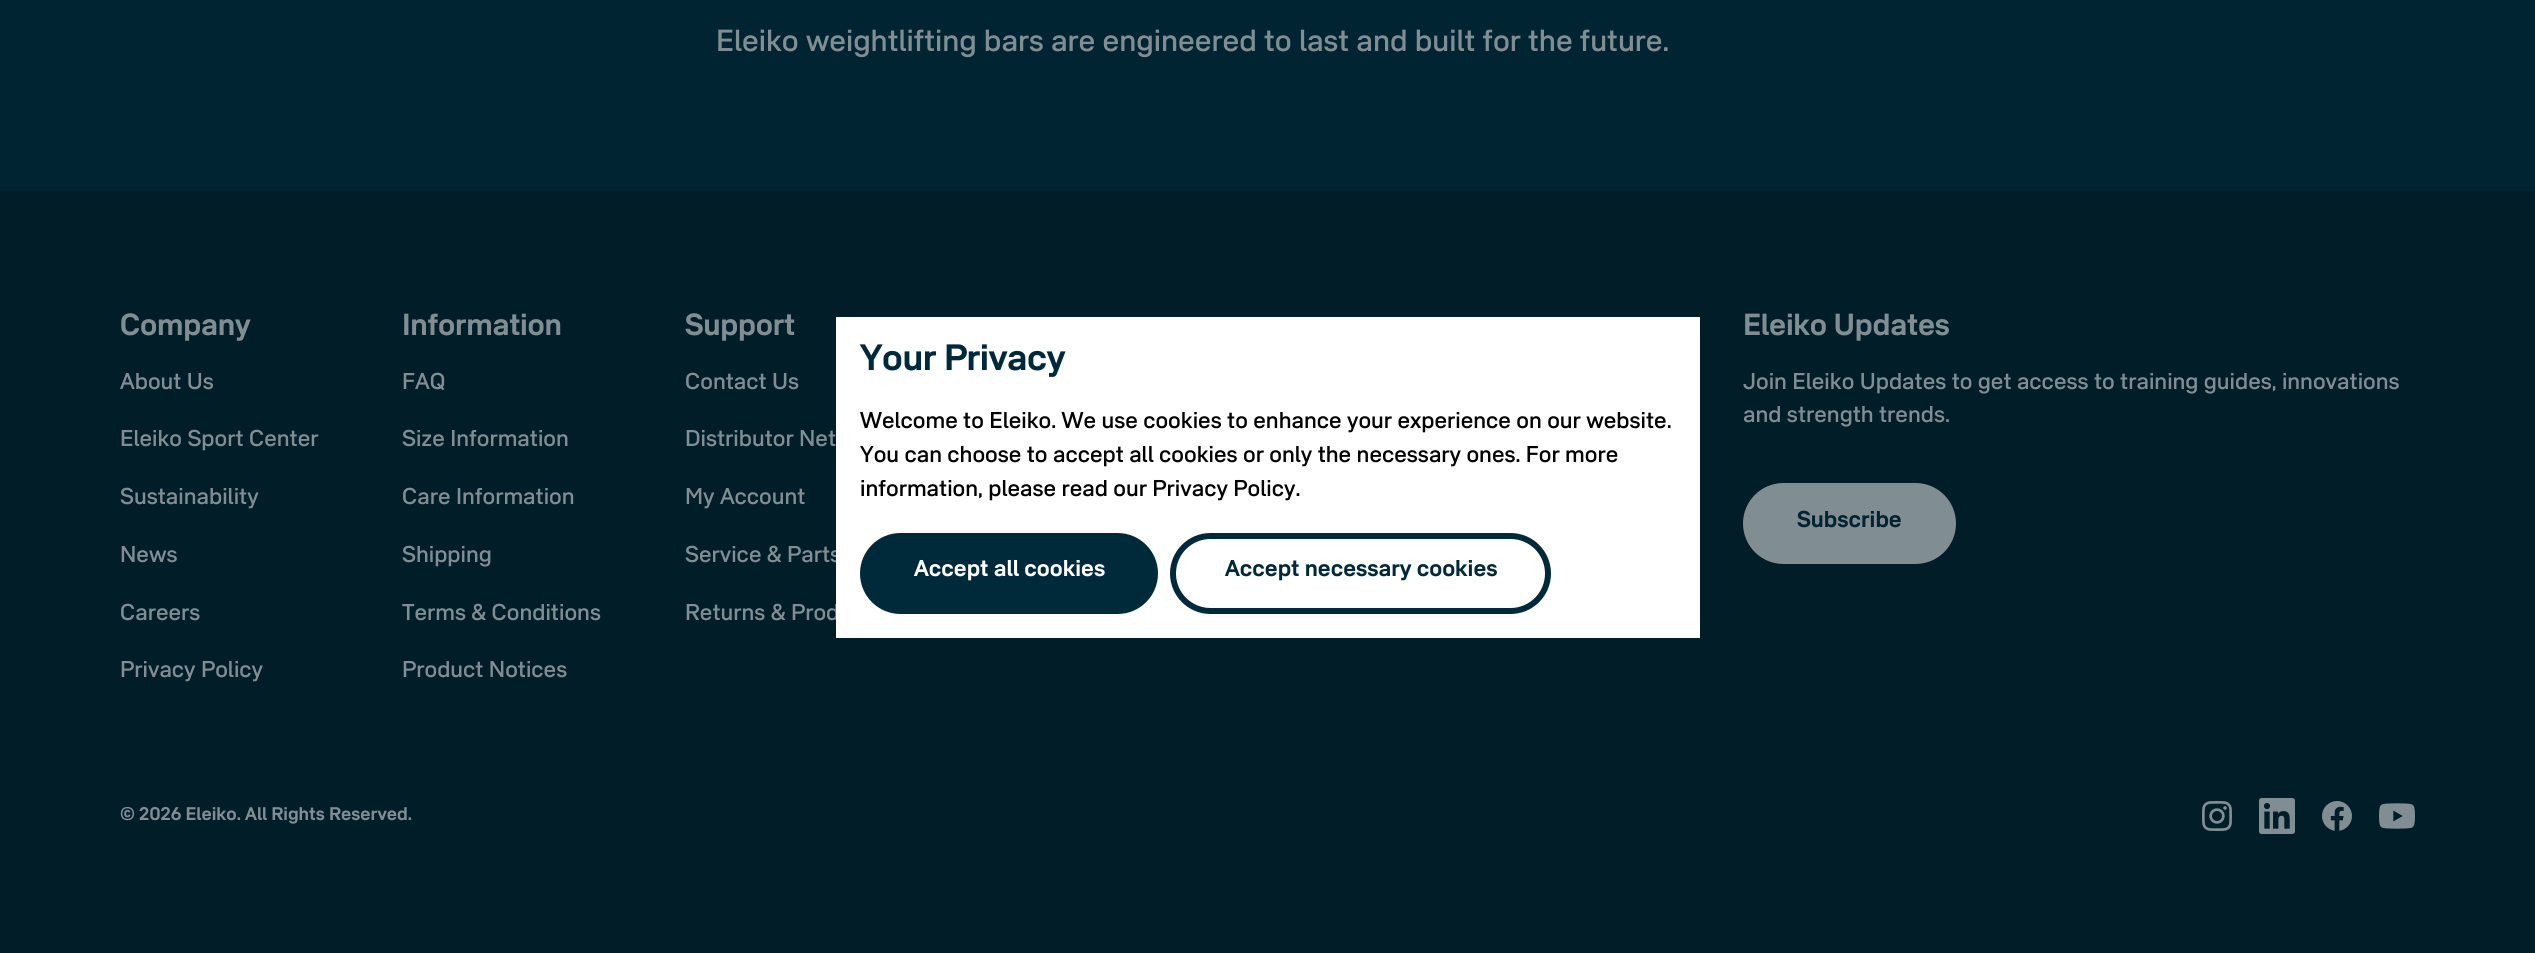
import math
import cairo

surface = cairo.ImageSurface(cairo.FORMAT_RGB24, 2535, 953)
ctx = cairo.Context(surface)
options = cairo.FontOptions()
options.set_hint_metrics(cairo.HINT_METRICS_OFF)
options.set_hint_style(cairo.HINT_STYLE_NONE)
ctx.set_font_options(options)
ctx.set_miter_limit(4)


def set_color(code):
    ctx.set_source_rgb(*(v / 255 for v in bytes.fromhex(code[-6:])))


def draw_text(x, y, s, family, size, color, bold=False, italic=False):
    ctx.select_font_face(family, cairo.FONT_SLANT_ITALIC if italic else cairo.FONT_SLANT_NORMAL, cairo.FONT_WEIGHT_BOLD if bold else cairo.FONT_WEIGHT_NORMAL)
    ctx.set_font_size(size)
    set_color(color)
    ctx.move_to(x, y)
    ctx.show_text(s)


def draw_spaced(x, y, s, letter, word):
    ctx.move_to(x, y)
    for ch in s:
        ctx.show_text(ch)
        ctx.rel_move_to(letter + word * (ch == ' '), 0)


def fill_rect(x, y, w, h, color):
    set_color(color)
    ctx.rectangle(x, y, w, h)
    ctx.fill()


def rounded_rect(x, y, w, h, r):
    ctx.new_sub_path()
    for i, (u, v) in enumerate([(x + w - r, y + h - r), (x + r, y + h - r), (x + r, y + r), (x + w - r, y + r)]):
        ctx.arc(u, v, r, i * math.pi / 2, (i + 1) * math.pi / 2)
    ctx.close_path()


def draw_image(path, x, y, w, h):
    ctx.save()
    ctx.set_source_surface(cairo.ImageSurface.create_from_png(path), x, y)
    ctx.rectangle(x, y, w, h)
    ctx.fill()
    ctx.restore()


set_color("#001d28")
ctx.paint()
fill_rect(0, 0, 2535, 191, "#002431")
draw_text(716, 51, "Eleiko weightlifting bars are engineered to last and built for the future.", "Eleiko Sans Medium", 30, "#808e94")
ctx.select_font_face("Eleiko Sans", cairo.FONT_SLANT_NORMAL, cairo.FONT_WEIGHT_BOLD)
draw_spaced(120, 335, "Company", -0.25, 0)
draw_text(120, 389, "About Us", "Eleiko Sans Medium", 22.5, "#808e94")
draw_text(120, 446, "Eleiko Sport Center", "Eleiko Sans Medium", 22.5, "#808e94")
draw_text(120, 504, "Sustainability", "Eleiko Sans Medium", 22.5, "#808e94")
draw_text(120, 562, "News", "Eleiko Sans Medium", 22.5, "#808e94")
draw_text(120, 620, "Careers", "Eleiko Sans Medium", 22.5, "#808e94")
draw_text(120, 677, "Privacy Policy", "Eleiko Sans Medium", 22.5, "#808e94")
ctx.select_font_face("Eleiko Sans", cairo.FONT_SLANT_NORMAL, cairo.FONT_WEIGHT_BOLD)
ctx.set_font_size(30)
draw_spaced(402, 335, "Information", -0.25, 0)
draw_text(402, 389, "FAQ", "Eleiko Sans Medium", 22.5, "#808e94")
draw_text(402, 446, "Size Information", "Eleiko Sans Medium", 22.5, "#808e94")
draw_text(402, 504, "Care Information", "Eleiko Sans Medium", 22.5, "#808e94")
draw_text(402, 562, "Shipping", "Eleiko Sans Medium", 22.5, "#808e94")
draw_text(402, 620, "Terms & Conditions", "Eleiko Sans Medium", 22.5, "#808e94")
draw_text(402, 677, "Product Notices", "Eleiko Sans Medium", 22.5, "#808e94")
ctx.select_font_face("Eleiko Sans", cairo.FONT_SLANT_NORMAL, cairo.FONT_WEIGHT_BOLD)
ctx.set_font_size(30)
draw_spaced(685, 335, "Support", -0.25, 0)
draw_text(685, 389, "Contact Us", "Eleiko Sans Medium", 22.5, "#808e94")
draw_text(685, 446, "Distributor Net", "Eleiko Sans Medium", 22.5, "#808e94")
draw_text(685, 504, "My Account", "Eleiko Sans Medium", 22.5, "#808e94")
draw_text(685, 562, "Service & Parts", "Eleiko Sans Medium", 22.5, "#808e94")
draw_text(685, 620, "Returns & Prod", "Eleiko Sans Medium", 22.5, "#808e94")
ctx.select_font_face("Eleiko Sans", cairo.FONT_SLANT_NORMAL, cairo.FONT_WEIGHT_BOLD)
ctx.set_font_size(30)
draw_spaced(1743, 335, "Eleiko Updates", -0.25, 0)
draw_text(1743, 389, "Join Eleiko Updates to get access to training guides, innovations", "Eleiko Sans Medium", 22.5, "#808e94")
draw_text(1743, 422, "and strength trends.", "Eleiko Sans Medium", 22.5, "#808e94")
rounded_rect(1743, 483, 213, 81, 40.5)
ctx.fill()
draw_text(1797, 527, "Subscribe", "Eleiko Sans", 22.5, "#002431", bold=True)
draw_text(120, 820, "© 2026 Eleiko. All Rights Reserved.", "Eleiko Sans", 18, "#808e94", bold=True)
draw_image("assets/img1.png", 2202, 801, 30, 30)
draw_image("assets/img2.png", 2259, 798, 36, 36)
draw_image("assets/img3.png", 2322, 801, 30, 30)
draw_image("assets/img4.png", 2379, 803, 36, 26)
fill_rect(836, 317, 864, 321, "#ffffff")
ctx.set_font_size(36)
set_color("#002a3a")
draw_spaced(860, 370, "Your Privacy", -0.4, 0)
draw_text(860, 428, "Welcome to Eleiko. We use cookies to enhance your experience on our website.", "Eleiko Sans Medium", 22.5, "#000000")
draw_text(860, 462, "You can choose to accept all cookies or only the necessary ones. For more", "Eleiko Sans Medium", 22.5, "#000000")
draw_text(860, 496, "information, please read our Privacy Policy.", "Eleiko Sans Medium", 22.5, "#000000")
set_color("#002a3a")
rounded_rect(860, 533, 298, 81, 40.5)
ctx.fill()
draw_text(914, 576, "Accept all cookies", "Eleiko Sans", 22.5, "#ffffff", bold=True)
rounded_rect(1173, 536, 375, 75, 37.5)
set_color("#002a3a")
ctx.set_line_width(6)
ctx.stroke()
draw_text(1225, 576, "Accept necessary cookies", "Eleiko Sans", 22.5, "#002a3a", bold=True)
surface.write_to_png("output.png")
